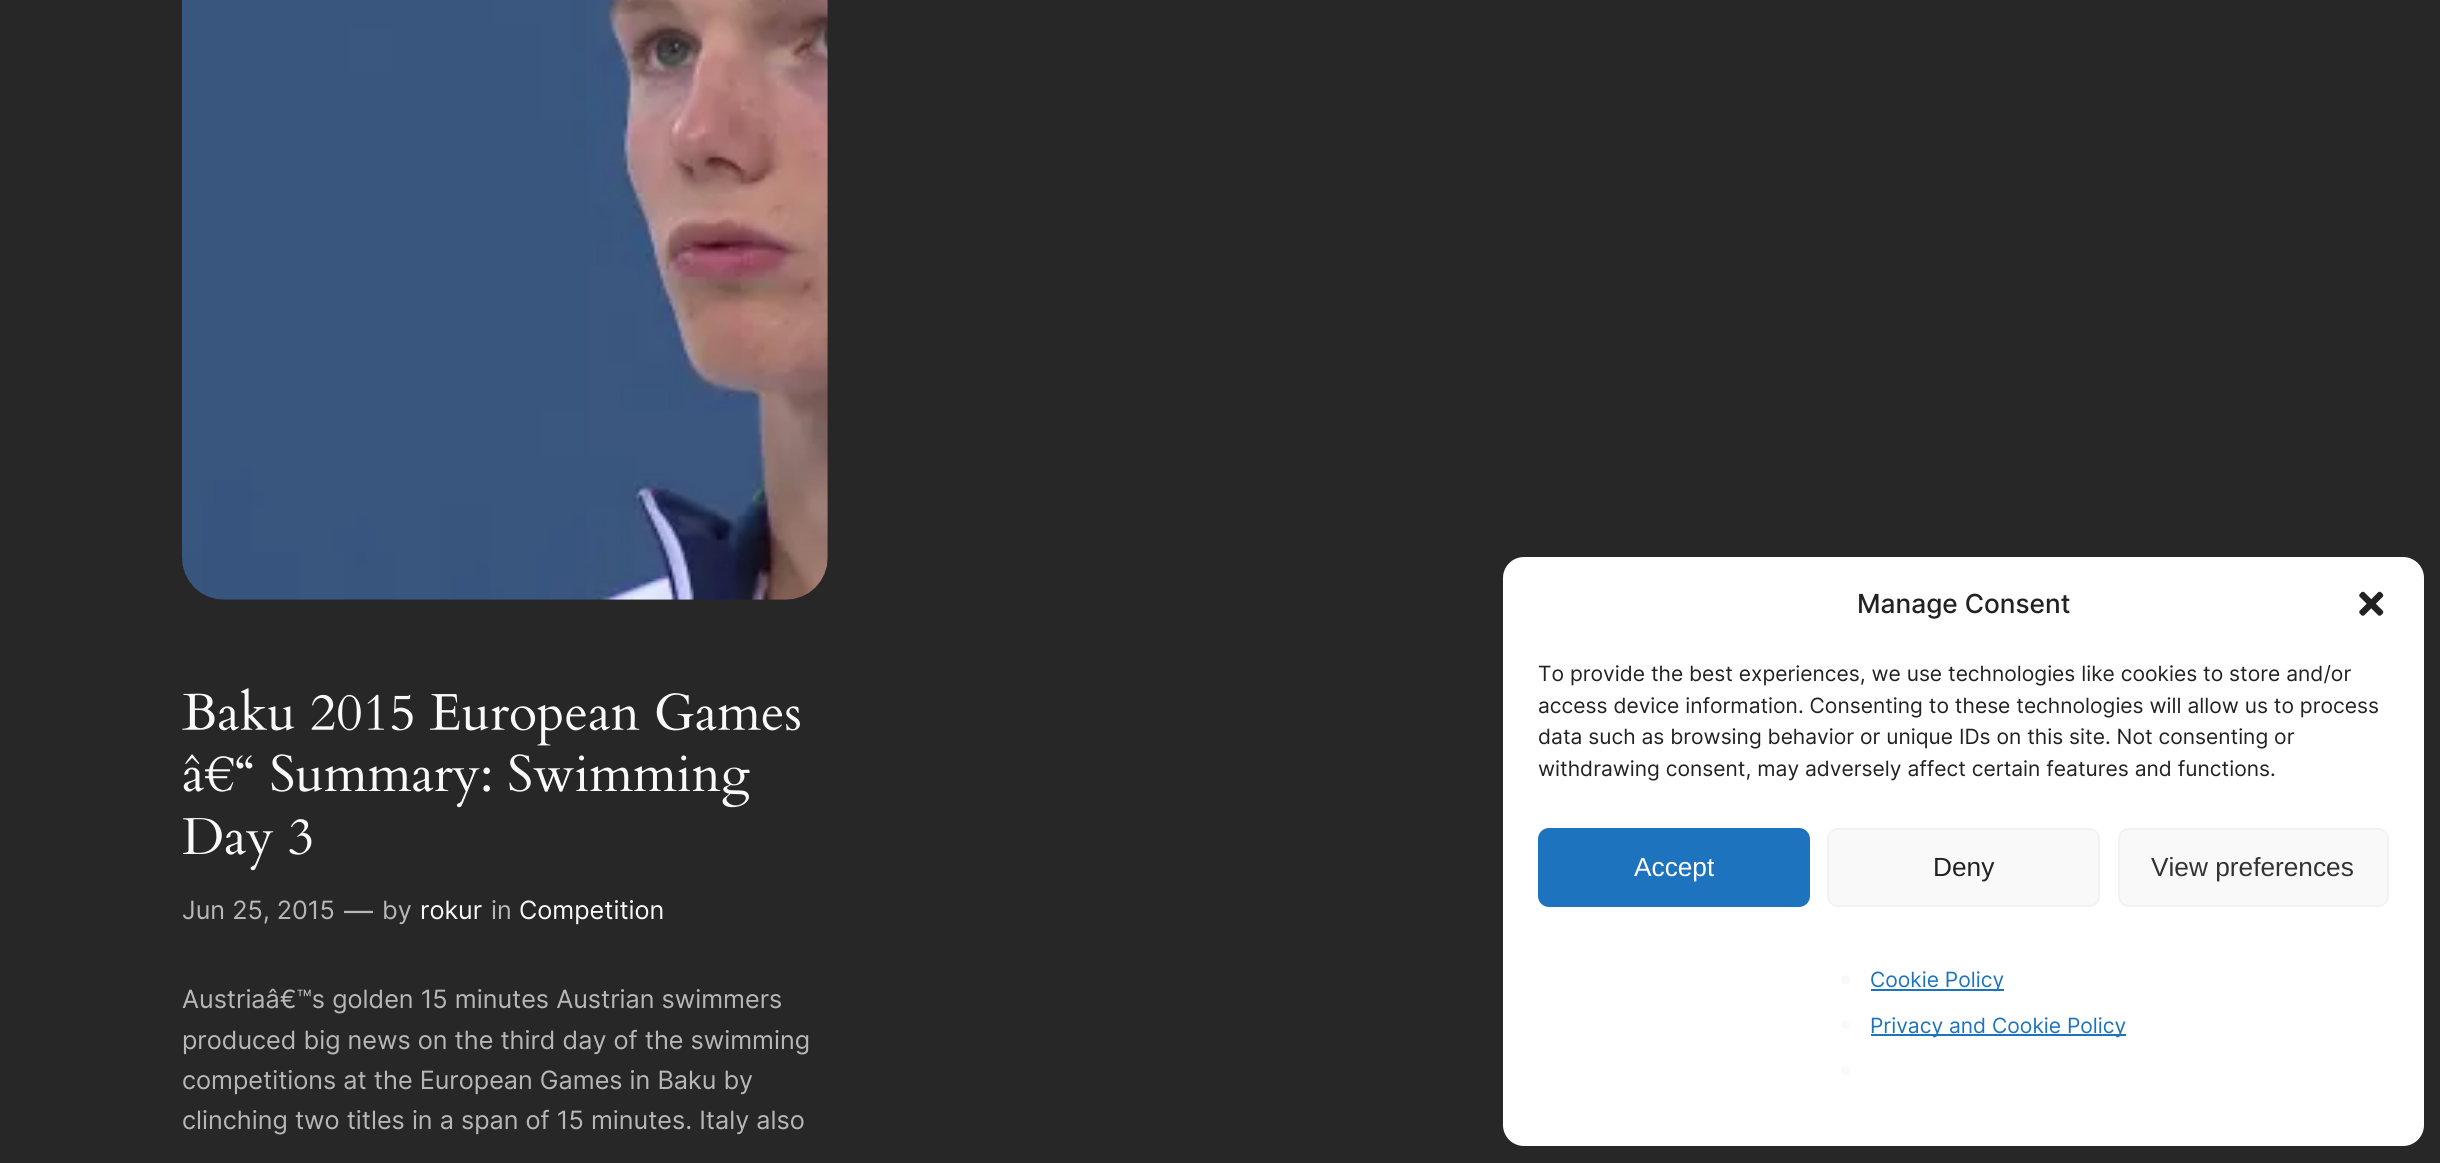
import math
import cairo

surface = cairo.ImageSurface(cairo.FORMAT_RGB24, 2440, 1163)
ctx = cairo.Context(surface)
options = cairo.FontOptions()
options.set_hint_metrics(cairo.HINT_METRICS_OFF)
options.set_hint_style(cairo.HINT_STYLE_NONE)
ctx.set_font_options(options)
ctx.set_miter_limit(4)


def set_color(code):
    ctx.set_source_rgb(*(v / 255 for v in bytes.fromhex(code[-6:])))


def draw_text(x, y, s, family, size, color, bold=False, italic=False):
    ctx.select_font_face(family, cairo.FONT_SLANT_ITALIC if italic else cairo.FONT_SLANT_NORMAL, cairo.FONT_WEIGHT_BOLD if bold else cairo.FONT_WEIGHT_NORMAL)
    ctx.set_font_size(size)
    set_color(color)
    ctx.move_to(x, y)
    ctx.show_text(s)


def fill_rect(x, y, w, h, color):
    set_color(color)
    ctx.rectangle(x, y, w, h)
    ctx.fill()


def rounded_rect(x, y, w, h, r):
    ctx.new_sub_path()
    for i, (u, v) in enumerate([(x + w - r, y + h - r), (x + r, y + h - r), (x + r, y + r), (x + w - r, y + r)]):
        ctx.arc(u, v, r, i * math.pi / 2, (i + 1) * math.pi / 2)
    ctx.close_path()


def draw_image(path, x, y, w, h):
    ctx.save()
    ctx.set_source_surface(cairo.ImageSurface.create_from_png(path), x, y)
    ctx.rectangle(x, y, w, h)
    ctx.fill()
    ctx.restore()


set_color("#272727")
ctx.paint()
draw_image("assets/img1.png", 182, 0, 646, 600)
draw_image("assets/img2.png", 182, 688, 618, 58)
draw_image("assets/img3.png", 183, 754, 567, 54)
draw_image("assets/img4.png", 183, 818, 129, 53)
draw_text(182, 919, "Jun 25, 2015", "Inter", 25.2, "#b7b7b7")
draw_text(344, 921, "—", "Inter", 29, "#b7b7b7")
draw_text(382, 919, "by", "Inter", 25.2, "#b7b7b7")
draw_text(420, 919, "rokur", "Inter", 25.2, "#f9f9f9")
draw_text(491, 919, "in", "Inter", 25.2, "#b7b7b7")
draw_text(519, 919, "Competition", "Inter", 25.2, "#f9f9f9")
draw_text(182, 1008, "Austriaâ€™s golden 15 minutes Austrian swimmers", "Inter", 25.2, "#b7b7b7")
draw_text(182, 1049, "produced big news on the third day of the swimming", "Inter", 25.2, "#b7b7b7")
draw_text(182, 1089, "competitions at the European Games in Baku by", "Inter", 25.2, "#b7b7b7")
draw_text(182, 1129, "clinching two titles in a span of 15 minutes. Italy also", "Inter", 25.2, "#b7b7b7")
set_color("#ffffff")
rounded_rect(1503, 557, 921, 589, 21)
ctx.fill()
draw_text(1857, 613, "Manage Consent", "Inter Medium", 26.25, "#222222")
draw_image("assets/img5.png", 2359, 591, 25, 25)
draw_text(1538, 681, "To provide the best experiences, we use technologies like cookies to store and/or", "Inter", 21, "#222222")
draw_text(1538, 713, "access device information. Consenting to these technologies will allow us to process", "Inter", 21, "#222222")
draw_text(1538, 744, "data such as browsing behavior or unique IDs on this site. Not consenting or", "Inter", 21, "#222222")
draw_text(1538, 776, "withdrawing consent, may adversely affect certain features and functions.", "Inter", 21, "#222222")
set_color("#1e73be")
rounded_rect(1539, 829, 270, 77, 10)
ctx.fill_preserve()
ctx.stroke()
draw_text(1634, 876, "Accept", "Liberation Sans", 26.25, "#ffffff")
set_color("#f9f9f9")
rounded_rect(1828, 829, 271, 77, 10)
ctx.fill_preserve()
set_color("#f2f2f2")
ctx.stroke()
draw_text(1933, 876, "Deny", "Liberation Sans", 26.25, "#222222")
set_color("#f9f9f9")
rounded_rect(2119, 829, 269, 77, 10)
ctx.fill_preserve()
set_color("#f2f2f2")
ctx.stroke()
draw_text(2151, 876, "View preferences", "Liberation Sans", 26.25, "#333333")
set_color("#f9f9f9")
ctx.new_path()
ctx.arc(1845.5, 979.5, 4.5, 0, 2 * math.pi)
ctx.fill()
fill_rect(1871, 989, 133, 2, "#1e73be")
draw_text(1870, 987, "Cookie Policy", "Inter", 21, "#1e73be")
set_color("#f9f9f9")
ctx.new_path()
ctx.arc(1845.5, 1024.5, 4.5, 0, 2 * math.pi)
ctx.fill()
fill_rect(1871, 1034, 255, 2, "#1e73be")
draw_text(1870, 1033, "Privacy and Cookie Policy", "Inter", 21, "#1e73be")
set_color("#f9f9f9")
ctx.new_path()
ctx.arc(1845.5, 1070.5, 4.5, 0, 2 * math.pi)
ctx.fill()
surface.write_to_png("output.png")
